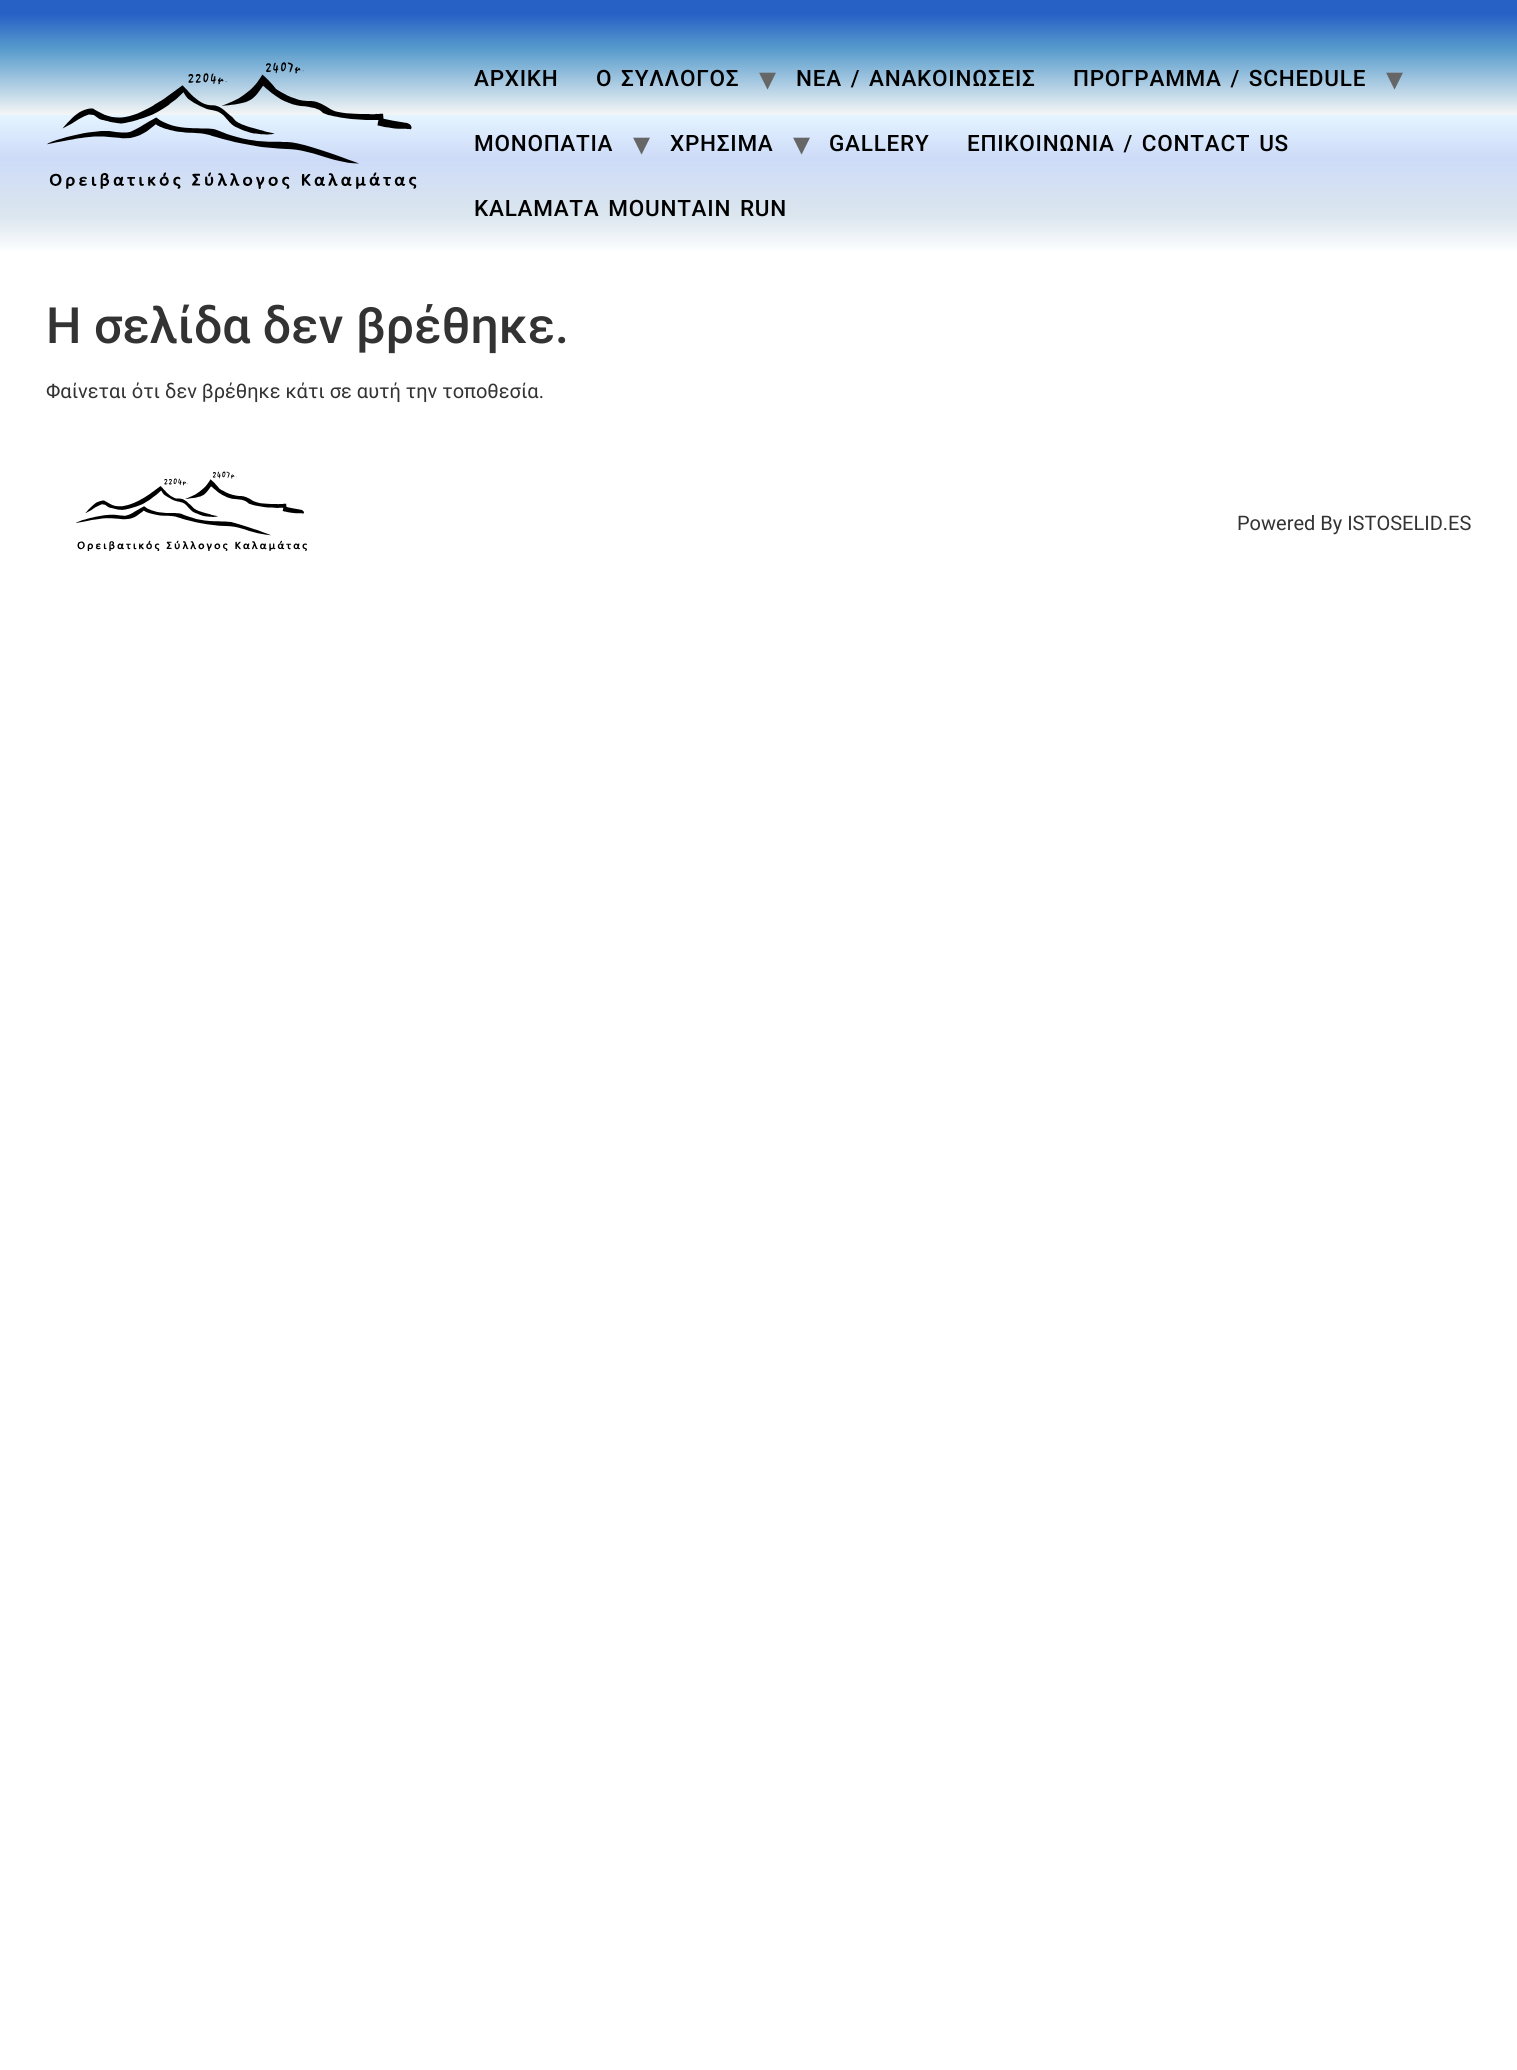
import math
import cairo

surface = cairo.ImageSurface(cairo.FORMAT_RGB24, 1517, 2070)
ctx = cairo.Context(surface)
options = cairo.FontOptions()
options.set_hint_metrics(cairo.HINT_METRICS_OFF)
options.set_hint_style(cairo.HINT_STYLE_NONE)
ctx.set_font_options(options)
ctx.set_miter_limit(4)


def set_color(code):
    ctx.set_source_rgb(*(v / 255 for v in bytes.fromhex(code[-6:])))


def draw_text(x, y, s, family, size, color, bold=False, italic=False):
    ctx.select_font_face(family, cairo.FONT_SLANT_ITALIC if italic else cairo.FONT_SLANT_NORMAL, cairo.FONT_WEIGHT_BOLD if bold else cairo.FONT_WEIGHT_NORMAL)
    ctx.set_font_size(size)
    set_color(color)
    ctx.move_to(x, y)
    ctx.show_text(s)


def draw_spaced(x, y, s, letter, word):
    ctx.move_to(x, y)
    for ch in s:
        ctx.show_text(ch)
        ctx.rel_move_to(letter + word * (ch == ' '), 0)


def draw_image(path, x, y, w, h):
    ctx.save()
    ctx.set_source_surface(cairo.ImageSurface.create_from_png(path), x, y)
    ctx.rectangle(x, y, w, h)
    ctx.fill()
    ctx.restore()


set_color("#ffffff")
ctx.paint()
gradient = cairo.LinearGradient(759, 288, 759, -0.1)
gradient.add_color_stop_rgba(0, 1, 1, 1, 1)
gradient.add_color_stop_rgba(0.12, 1, 1, 1, 1)
gradient.add_color_stop_rgba(0.25, 0.859, 0.902, 0.933, 1)
gradient.add_color_stop_rgba(0.45, 0.804, 0.859, 0.973, 1)
gradient.add_color_stop_rgba(0.6, 0.894, 0.957, 1, 1)
gradient.add_color_stop_rgba(0.6, 0.961, 0.965, 0.965, 1)
gradient.add_color_stop_rgba(0.83, 0.341, 0.608, 0.8, 1)
gradient.add_color_stop_rgba(0.95, 0.157, 0.38, 0.776, 1)
ctx.set_source(gradient)
ctx.rectangle(0, 0, 1517, 251)
ctx.fill()
draw_image("assets/img1.png", 47, 62, 370, 127)
ctx.select_font_face("Roboto Medium")
ctx.set_font_size(22.5)
set_color("#000000")
draw_spaced(474, 86, "ΑΡΧΙΚΗ", 0.75, 0)
draw_spaced(596, 86, "Ο ΣΥΛΛΟΓΟΣ", 0.75, 2.5)
ctx.select_font_face("DejaVu Sans")
ctx.set_font_size(34)
set_color("#666666")
draw_spaced(759, 90, "▾", 0.75, 0)
ctx.select_font_face("Roboto Medium")
ctx.set_font_size(22.5)
set_color("#000000")
draw_spaced(796, 86, "ΝΕΑ / ΑΝΑΚΟΙΝΩΣΕΙΣ", 0.75, 2.5)
draw_spaced(1073, 86, "ΠΡΟΓΡΑΜΜΑ / SCHEDULE", 0.75, 2.5)
ctx.select_font_face("DejaVu Sans")
ctx.set_font_size(34)
set_color("#666666")
draw_spaced(1386, 90, "▾", 0.75, 0)
ctx.select_font_face("Roboto Medium")
ctx.set_font_size(22.5)
set_color("#000000")
draw_spaced(474, 151, "ΜΟΝΟΠΑΤΙΑ", 0.75, 0)
ctx.select_font_face("DejaVu Sans")
ctx.set_font_size(34)
set_color("#666666")
draw_spaced(633, 155, "▾", 0.75, 0)
ctx.select_font_face("Roboto Medium")
ctx.set_font_size(22.5)
set_color("#000000")
draw_spaced(670, 151, "ΧΡΗΣΙΜΑ", 0.75, 0)
ctx.select_font_face("DejaVu Sans")
ctx.set_font_size(34)
set_color("#666666")
draw_spaced(793, 155, "▾", 0.75, 0)
ctx.select_font_face("Roboto Medium")
ctx.set_font_size(22.5)
set_color("#000000")
draw_spaced(829, 151, "GALLERY", 0.75, 0)
draw_spaced(967, 151, "ΕΠΙΚΟΙΝΩΝΙΑ / CONTACT US", 0.75, 2.5)
draw_spaced(474, 216, "KALAMATA MOUNTAIN RUN", 0.75, 2.5)
draw_text(46, 343, "Η σελίδα δεν βρέθηκε.", "Roboto Medium", 50, "#333333")
draw_text(46, 398, "Φαίνεται ότι δεν βρέθηκε κάτι σε αυτή την τοποθεσία.", "Roboto", 20, "#333333")
draw_image("assets/img2.png", 76, 471, 231, 80)
draw_text(1237, 530, "Powered By ISTOSELID.ES", "Roboto", 20, "#333333")
surface.write_to_png("output.png")
